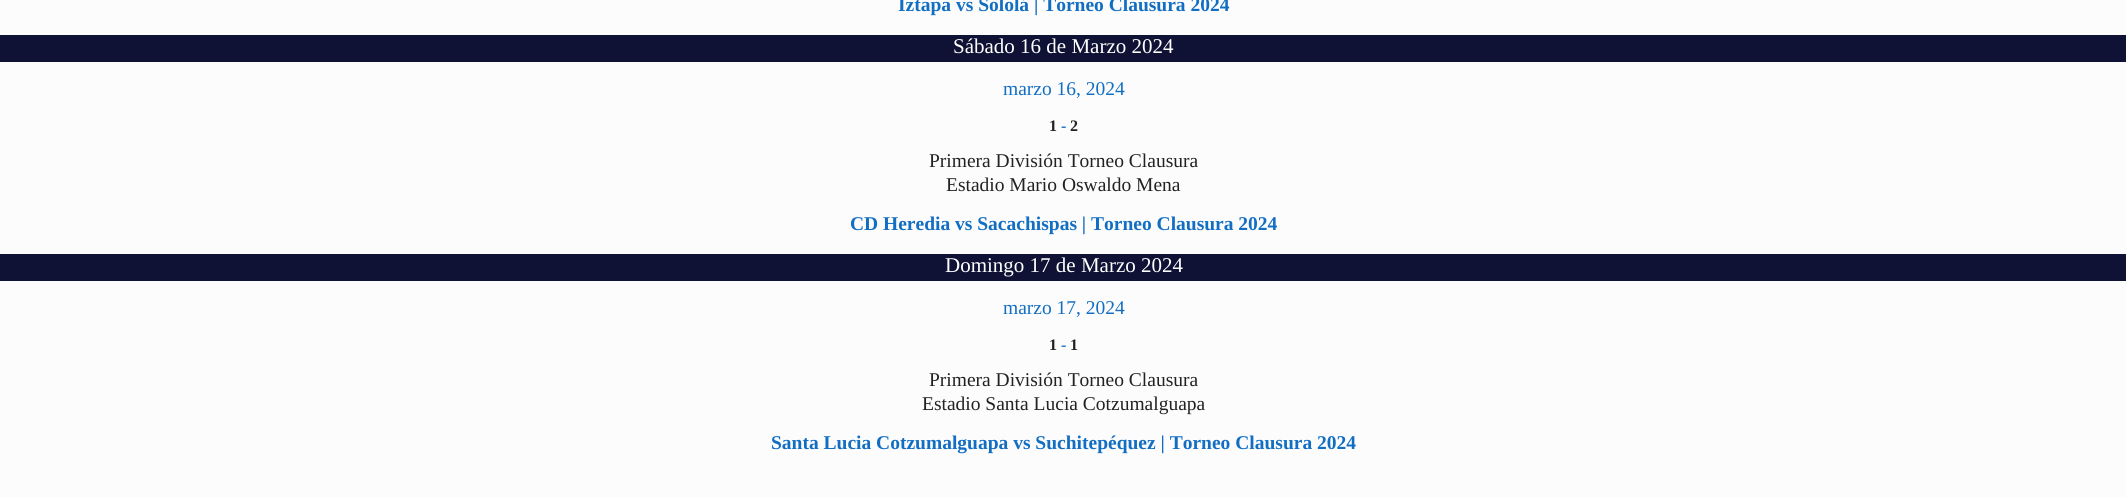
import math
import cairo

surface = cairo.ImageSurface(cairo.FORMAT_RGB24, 2126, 497)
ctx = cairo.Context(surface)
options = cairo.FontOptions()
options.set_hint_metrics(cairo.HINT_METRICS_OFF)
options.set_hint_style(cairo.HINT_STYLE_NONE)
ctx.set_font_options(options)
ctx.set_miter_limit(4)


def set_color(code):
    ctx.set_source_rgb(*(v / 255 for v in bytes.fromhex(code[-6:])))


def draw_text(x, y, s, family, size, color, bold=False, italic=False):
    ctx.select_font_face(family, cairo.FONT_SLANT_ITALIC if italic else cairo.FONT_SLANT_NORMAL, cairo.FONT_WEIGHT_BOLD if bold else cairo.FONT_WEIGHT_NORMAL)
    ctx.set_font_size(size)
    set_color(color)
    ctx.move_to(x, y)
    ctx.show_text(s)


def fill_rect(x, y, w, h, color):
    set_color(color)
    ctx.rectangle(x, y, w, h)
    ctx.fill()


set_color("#fcfcfc")
ctx.paint()
draw_text(898, 11, "Iztapa vs Sololá | Torneo Clausura 2024", "Liberation Serif", 19.5, "#126ec3", bold=True)
fill_rect(0, 35, 2126, 27, "#0f1235")
draw_text(953, 53, "Sábado 16 de Marzo 2024", "Liberation Serif", 21, "#ffffff")
draw_text(1003, 95, "marzo 16, 2024", "Liberation Serif", 19.5, "#126ec3")
draw_text(1049, 131, "1", "Liberation Serif", 16, "#222222", bold=True)
draw_text(1061, 131, "-", "Liberation Serif", 16, "#126ec3", bold=True)
draw_text(1070, 131, "2", "Liberation Serif", 16, "#222222", bold=True)
draw_text(929, 167, "Primera División Torneo Clausura", "Liberation Serif", 19.5, "#222222")
draw_text(946, 191, "Estadio Mario Oswaldo Mena", "Liberation Serif", 19.5, "#222222")
draw_text(850, 230, "CD Heredia vs Sacachispas | Torneo Clausura 2024", "Liberation Serif", 19.5, "#126ec3", bold=True)
fill_rect(0, 254, 2126, 27, "#0f1235")
draw_text(945, 272, "Domingo 17 de Marzo 2024", "Liberation Serif", 21, "#ffffff")
draw_text(1003, 314, "marzo 17, 2024", "Liberation Serif", 19.5, "#126ec3")
draw_text(1049, 350, "1", "Liberation Serif", 16, "#222222", bold=True)
draw_text(1061, 350, "-", "Liberation Serif", 16, "#126ec3", bold=True)
draw_text(1070, 350, "1", "Liberation Serif", 16, "#222222", bold=True)
draw_text(929, 386, "Primera División Torneo Clausura", "Liberation Serif", 19.5, "#222222")
draw_text(922, 410, "Estadio Santa Lucia Cotzumalguapa", "Liberation Serif", 19.5, "#222222")
draw_text(771, 449, "Santa Lucia Cotzumalguapa vs Suchitepéquez | Torneo Clausura 2024", "Liberation Serif", 19.5, "#126ec3", bold=True)
surface.write_to_png("output.png")
